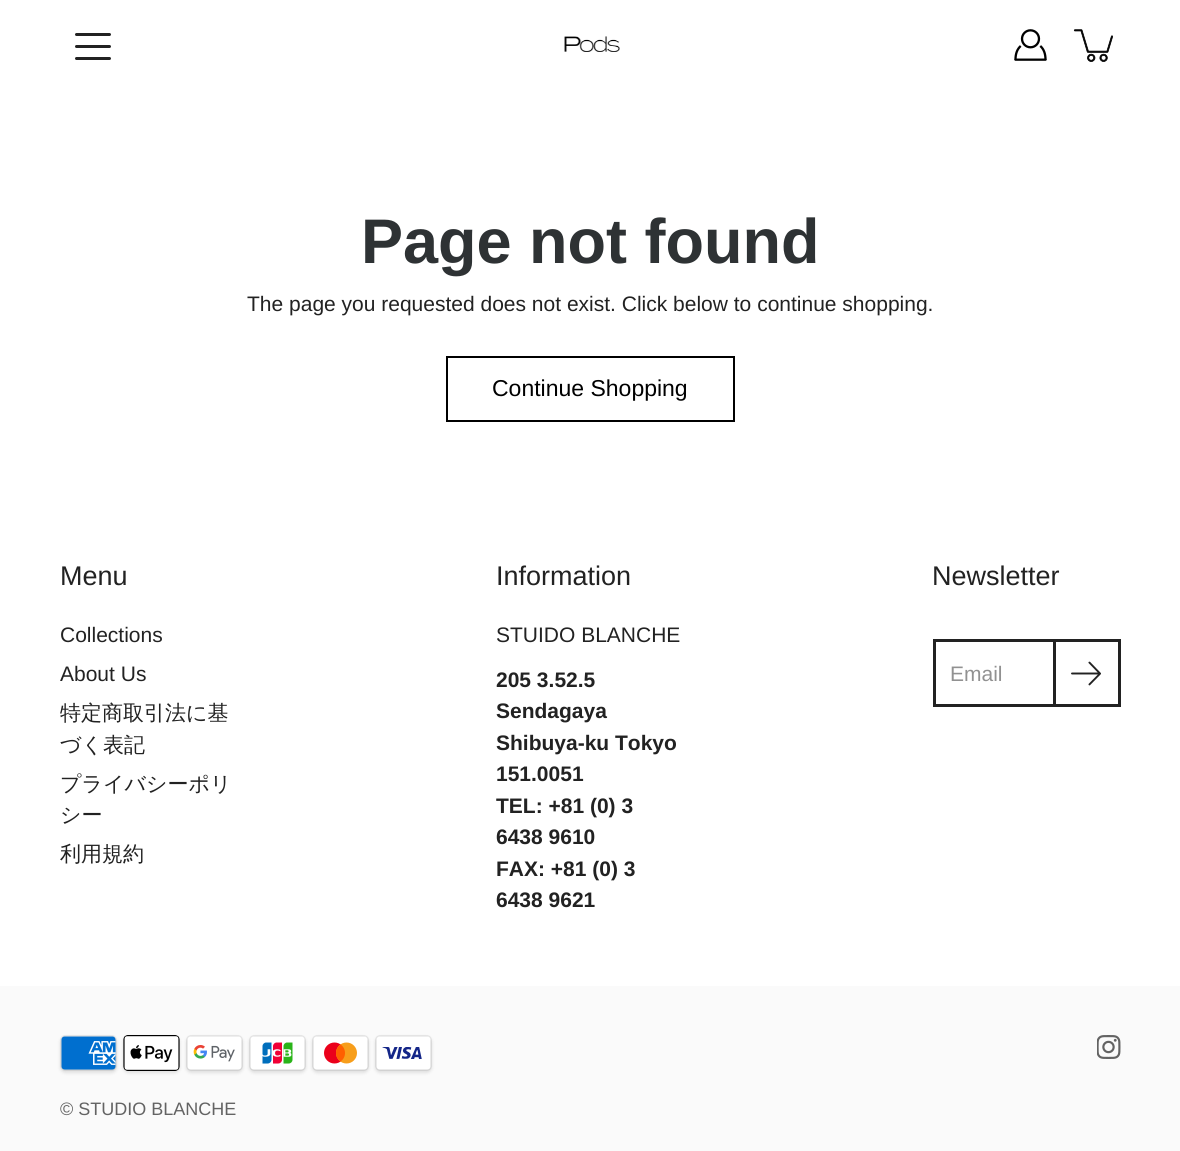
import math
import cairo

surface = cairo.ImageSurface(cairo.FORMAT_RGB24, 1180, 1151)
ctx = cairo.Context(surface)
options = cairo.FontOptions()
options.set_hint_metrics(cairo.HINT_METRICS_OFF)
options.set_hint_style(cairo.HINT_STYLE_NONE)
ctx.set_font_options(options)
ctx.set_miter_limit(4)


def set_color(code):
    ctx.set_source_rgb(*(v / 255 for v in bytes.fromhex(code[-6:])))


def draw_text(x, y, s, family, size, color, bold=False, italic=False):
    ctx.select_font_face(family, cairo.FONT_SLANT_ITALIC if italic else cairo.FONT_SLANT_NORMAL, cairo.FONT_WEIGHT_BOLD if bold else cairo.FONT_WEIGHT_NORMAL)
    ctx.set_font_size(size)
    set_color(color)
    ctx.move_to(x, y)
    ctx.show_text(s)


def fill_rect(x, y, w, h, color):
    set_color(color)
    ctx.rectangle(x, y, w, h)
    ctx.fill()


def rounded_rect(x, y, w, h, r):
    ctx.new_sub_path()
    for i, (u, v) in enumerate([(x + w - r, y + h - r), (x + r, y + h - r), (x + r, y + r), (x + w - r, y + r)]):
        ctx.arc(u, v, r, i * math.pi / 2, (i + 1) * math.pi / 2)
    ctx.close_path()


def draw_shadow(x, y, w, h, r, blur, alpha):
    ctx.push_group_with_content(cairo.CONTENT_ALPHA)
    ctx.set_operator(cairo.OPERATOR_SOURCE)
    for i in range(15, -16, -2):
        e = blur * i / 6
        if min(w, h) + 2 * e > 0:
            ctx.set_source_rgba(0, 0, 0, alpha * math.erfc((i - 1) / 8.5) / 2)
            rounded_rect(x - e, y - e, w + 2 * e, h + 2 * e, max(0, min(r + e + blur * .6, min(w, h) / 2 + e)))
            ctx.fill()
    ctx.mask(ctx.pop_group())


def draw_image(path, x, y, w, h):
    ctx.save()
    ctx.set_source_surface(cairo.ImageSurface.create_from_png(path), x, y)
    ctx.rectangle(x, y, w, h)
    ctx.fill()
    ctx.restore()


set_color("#ffffff")
ctx.paint()
set_color("#222222")
rounded_rect(75, 45, 36, 3, 1.5)
ctx.fill()
rounded_rect(75, 33, 36, 3, 1.5)
ctx.fill()
rounded_rect(75, 57, 36, 3, 1.5)
ctx.fill()
draw_image("assets/img1.png", 1014, 29, 33, 32)
draw_image("assets/img2.png", 1073, 29, 40, 33)
draw_image("assets/img3.png", 564, 36, 56, 16)
draw_text(361, 263, "Page not found", "Liberation Sans", 63, "#2e3234", bold=True)
draw_text(247, 311, "The page you requested does not exist. Click below to continue shopping.", "Liberation Sans", 21, "#222222")
ctx.rectangle(447, 357, 287, 64)
set_color("#000000")
ctx.stroke()
draw_text(492, 396, "Continue Shopping", "Liberation Sans", 23, "#000000")
draw_text(60, 585, "Menu", "Liberation Sans", 27, "#222222")
draw_text(60, 642, "Collections", "Liberation Sans", 21, "#222222")
draw_text(60, 681, "About Us", "Liberation Sans", 21, "#222222")
draw_text(60, 720, "特定商取引法に基", "WenQuanYi Zen Hei Medium", 21, "#222222")
draw_text(60, 752, "づく表記", "WenQuanYi Zen Hei Medium", 21, "#222222")
draw_text(60, 791, "プライバシーポリ", "WenQuanYi Zen Hei Medium", 21, "#222222")
draw_text(60, 822, "シー", "WenQuanYi Zen Hei Medium", 21, "#222222")
draw_text(60, 861, "利用規約", "WenQuanYi Zen Hei Medium", 21, "#222222")
draw_text(496, 585, "Information", "Liberation Sans", 27, "#222222")
draw_text(496, 642, "STUIDO BLANCHE", "Liberation Sans", 21, "#222222")
draw_text(496, 687, "205 3.52.5", "Liberation Sans", 21, "#222222", bold=True)
draw_text(496, 718, "Sendagaya", "Liberation Sans", 21, "#222222", bold=True)
draw_text(496, 750, "Shibuya-ku Tokyo", "Liberation Sans", 21, "#222222", bold=True)
draw_text(496, 781, "151.0051", "Liberation Sans", 21, "#222222", bold=True)
draw_text(496, 813, "TEL: +81 (0) 3", "Liberation Sans", 21, "#222222", bold=True)
draw_text(496, 844, "6438 9610", "Liberation Sans", 21, "#222222", bold=True)
draw_text(496, 876, "FAX: +81 (0) 3", "Liberation Sans", 21, "#222222", bold=True)
draw_text(496, 907, "6438 9621", "Liberation Sans", 21, "#222222", bold=True)
draw_text(932, 585, "Newsletter", "Liberation Sans", 27, "#222222")
ctx.rectangle(934.5, 640.5, 185, 65)
ctx.set_line_width(3)
ctx.stroke()
draw_text(950, 681, "Email", "Liberation Sans", 21, "#919191")
ctx.rectangle(1054.5, 640.5, 65, 65)
set_color("#222222")
ctx.stroke()
draw_image("assets/img4.png", 1071, 661, 30, 25)
fill_rect(0, 986, 1180, 165, "#fafafa")
draw_image("assets/img5.png", 1097, 1035, 24, 24)
set_color("#000000")
draw_shadow(60, 1037, 57, 36, 5, 1.5, 0.1)
draw_image("assets/img6.png", 60, 1035, 57, 36)
draw_shadow(123, 1037, 57, 36, 5, 1.5, 0.1)
draw_image("assets/img7.png", 123, 1035, 57, 36)
draw_shadow(186, 1037, 57, 36, 5, 1.5, 0.1)
draw_image("assets/img8.png", 186, 1035, 57, 36)
draw_shadow(249, 1037, 57, 36, 5, 1.5, 0.1)
draw_image("assets/img9.png", 249, 1035, 57, 36)
draw_shadow(312, 1037, 57, 36, 5, 1.5, 0.1)
draw_image("assets/img10.png", 312, 1035, 57, 36)
draw_shadow(375, 1037, 57, 36, 5, 1.5, 0.1)
draw_image("assets/img11.png", 375, 1035, 57, 36)
draw_text(60, 1115, "© STUDIO BLANCHE", "Liberation Sans", 18, "#636363")
surface.write_to_png("output.png")
